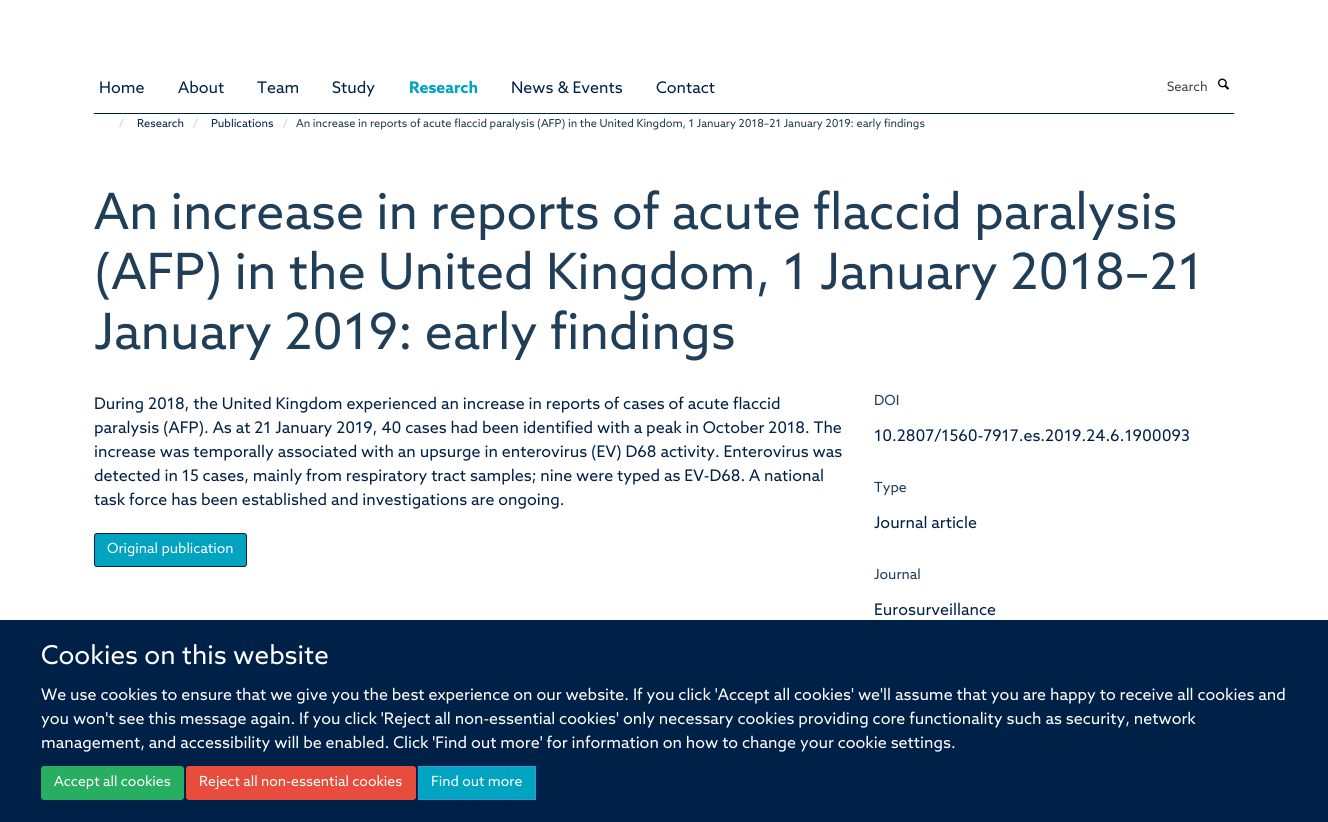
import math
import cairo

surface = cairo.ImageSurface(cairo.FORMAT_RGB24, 1328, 822)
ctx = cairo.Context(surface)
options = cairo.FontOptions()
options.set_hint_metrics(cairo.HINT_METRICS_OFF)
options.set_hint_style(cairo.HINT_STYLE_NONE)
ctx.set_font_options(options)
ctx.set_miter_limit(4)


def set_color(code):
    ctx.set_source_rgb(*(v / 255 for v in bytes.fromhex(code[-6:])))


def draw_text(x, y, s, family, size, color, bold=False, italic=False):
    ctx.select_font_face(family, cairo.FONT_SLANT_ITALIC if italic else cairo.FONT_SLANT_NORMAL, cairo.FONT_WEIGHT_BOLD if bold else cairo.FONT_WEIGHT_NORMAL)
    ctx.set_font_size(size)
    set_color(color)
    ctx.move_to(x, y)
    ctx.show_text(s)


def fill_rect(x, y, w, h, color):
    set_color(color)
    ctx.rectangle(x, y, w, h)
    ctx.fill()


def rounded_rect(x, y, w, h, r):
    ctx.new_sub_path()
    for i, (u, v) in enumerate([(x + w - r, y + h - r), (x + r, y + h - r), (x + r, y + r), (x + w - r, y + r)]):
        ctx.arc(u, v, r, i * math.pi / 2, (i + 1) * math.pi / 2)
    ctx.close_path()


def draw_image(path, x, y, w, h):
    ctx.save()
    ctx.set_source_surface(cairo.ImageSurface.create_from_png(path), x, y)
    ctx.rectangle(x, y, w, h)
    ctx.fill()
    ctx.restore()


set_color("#ffffff")
ctx.paint()
fill_rect(94, 113, 1140, 1, "#002147")
draw_text(99, 93, "Home", "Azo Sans", 16, "#002147")
draw_text(178, 93, "About", "Azo Sans", 16, "#002147")
draw_text(257, 93, "Team", "Azo Sans", 16, "#002147")
draw_text(332, 93, "Study", "Azo Sans", 16, "#002147")
draw_text(409, 93, "Research", "Azo Sans", 16, "#00a3c0", bold=True)
draw_text(511, 93, "News & Events", "Azo Sans", 16, "#002147")
draw_text(656, 93, "Contact", "Azo Sans", 16, "#002147")
draw_text(1167, 91, "Search", "Azo Sans", 13, "#444444")
draw_image("assets/img1.png", 1218, 78, 11, 12)
draw_text(119, 127, "/", "Azo Sans", 11, "#cccccc")
draw_text(137, 127, "Research", "Azo Sans", 11, "#002147")
draw_text(193, 127, "/", "Azo Sans", 11, "#cccccc")
draw_text(211, 127, "Publications", "Azo Sans", 11, "#002147")
draw_text(283, 127, "/", "Azo Sans", 11, "#cccccc")
draw_text(296, 127, "An increase in reports of acute flaccid paralysis (AFP) in the United Kingdom, 1 January 2018–21 January 2019: early findings", "Azo Sans", 11, "#1d3850")
draw_text(94, 229, "An increase in reports of acute flaccid paralysis", "Azo Sans", 50, "#203e58")
draw_text(94, 289, "(AFP) in the United Kingdom, 1 January 2018–21", "Azo Sans", 50, "#203e58")
draw_text(94, 349, "January 2019: early findings", "Azo Sans", 50, "#203e58")
draw_text(94, 409, "During 2018, the United Kingdom experienced an increase in reports of cases of acute flaccid", "Azo Sans", 16, "#002147")
draw_text(94, 433, "paralysis (AFP). As at 21 January 2019, 40 cases had been identified with a peak in October 2018. The", "Azo Sans", 16, "#002147")
draw_text(94, 457, "increase was temporally associated with an upsurge in enterovirus (EV) D68 activity. Enterovirus was", "Azo Sans", 16, "#002147")
draw_text(94, 481, "detected in 15 cases, mainly from respiratory tract samples; nine were typed as EV-D68. A national", "Azo Sans", 16, "#002147")
draw_text(94, 505, "task force has been established and investigations are ongoing.", "Azo Sans", 16, "#002147")
set_color("#00a3c0")
rounded_rect(94.5, 533.5, 152, 33, 2.5)
ctx.fill_preserve()
set_color("#002147")
ctx.set_line_width(1)
ctx.stroke()
draw_text(107, 553, "Original publication", "Azo Sans", 14, "#ffffff")
draw_text(874, 405, "DOI", "Azo Sans", 14, "#203e58")
draw_text(874, 441, "10.2807/1560-7917.es.2019.24.6.1900093", "Azo Sans", 16, "#002147")
draw_text(874, 492, "Type", "Azo Sans", 14, "#203e58")
draw_text(874, 528, "Journal article", "Azo Sans", 16, "#002147")
draw_text(874, 579, "Journal", "Azo Sans", 14, "#203e58")
draw_text(874, 615, "Eurosurveillance", "Azo Sans", 16, "#002147")
fill_rect(0, 620, 1328, 202, "#002147")
draw_text(41, 664, "Cookies on this website", "Azo Sans", 26, "#ffffff")
draw_text(41, 700, "We use cookies to ensure that we give you the best experience on our website. If you click 'Accept all cookies' we'll assume that you are happy to receive all cookies and", "Azo Sans", 16, "#ffffff")
draw_text(41, 724, "you won't see this message again. If you click 'Reject all non-essential cookies' only necessary cookies providing core functionality such as security, network", "Azo Sans", 16, "#ffffff")
draw_text(41, 748, "management, and accessibility will be enabled. Click 'Find out more' for information on how to change your cookie settings.", "Azo Sans", 16, "#ffffff")
set_color("#27ae60")
rounded_rect(41.5, 766.5, 142, 33, 2.5)
ctx.fill_preserve()
ctx.stroke()
draw_text(54, 786, "Accept all cookies", "Azo Sans", 14, "#ffffff")
set_color("#e74c3c")
rounded_rect(186.5, 766.5, 229, 33, 2.5)
ctx.fill_preserve()
ctx.stroke()
draw_text(199, 786, "Reject all non-essential cookies", "Azo Sans", 14, "#ffffff")
set_color("#00a3c0")
ctx.rectangle(418.5, 766.5, 117, 33)
ctx.fill_preserve()
set_color("#3498db")
ctx.stroke()
draw_text(431, 786, "Find out more", "Azo Sans", 14, "#ffffff")
surface.write_to_png("output.png")
